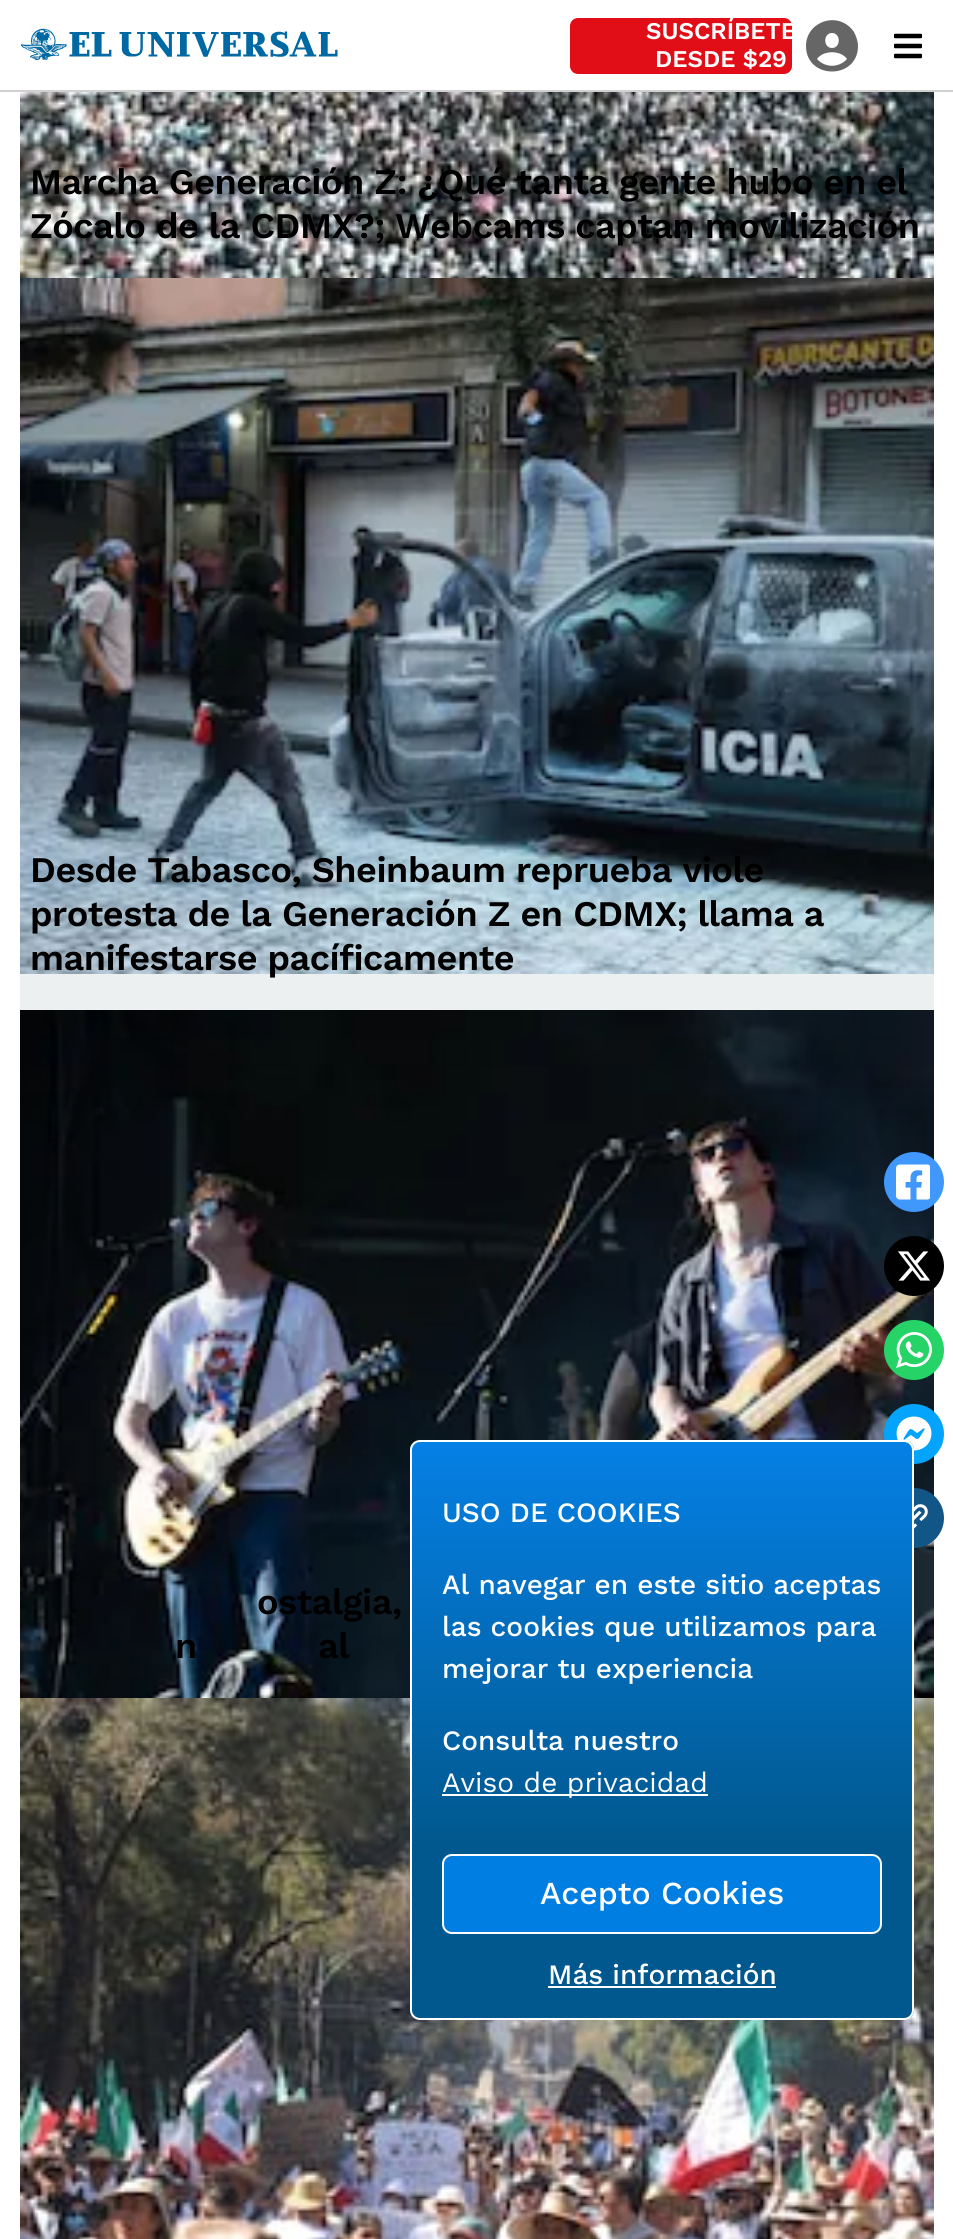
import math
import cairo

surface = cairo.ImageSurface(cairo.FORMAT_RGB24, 953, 2239)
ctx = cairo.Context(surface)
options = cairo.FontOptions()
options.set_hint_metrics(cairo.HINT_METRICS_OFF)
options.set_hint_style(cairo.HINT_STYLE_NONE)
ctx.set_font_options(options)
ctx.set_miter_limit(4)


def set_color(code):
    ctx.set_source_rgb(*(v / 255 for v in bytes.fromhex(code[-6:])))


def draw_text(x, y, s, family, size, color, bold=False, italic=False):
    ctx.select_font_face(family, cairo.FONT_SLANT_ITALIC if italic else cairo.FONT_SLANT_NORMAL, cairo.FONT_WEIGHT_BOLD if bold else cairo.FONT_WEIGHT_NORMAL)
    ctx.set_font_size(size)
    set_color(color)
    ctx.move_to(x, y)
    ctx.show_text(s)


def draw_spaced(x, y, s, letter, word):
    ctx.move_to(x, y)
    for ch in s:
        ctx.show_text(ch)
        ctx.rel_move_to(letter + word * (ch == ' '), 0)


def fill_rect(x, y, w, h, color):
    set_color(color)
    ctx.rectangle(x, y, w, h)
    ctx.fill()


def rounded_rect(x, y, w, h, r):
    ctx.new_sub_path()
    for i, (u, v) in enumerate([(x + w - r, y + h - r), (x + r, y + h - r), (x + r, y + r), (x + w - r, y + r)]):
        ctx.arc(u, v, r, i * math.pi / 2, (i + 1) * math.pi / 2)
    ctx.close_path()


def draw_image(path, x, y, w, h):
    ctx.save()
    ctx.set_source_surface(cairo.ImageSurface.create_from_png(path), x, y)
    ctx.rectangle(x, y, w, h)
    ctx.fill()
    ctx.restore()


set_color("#ffffff")
ctx.paint()
fill_rect(0, 90, 953, 2, "#d0d0d0")
draw_image("assets/img1.png", 21, 28, 317, 32)
set_color("#e20e17")
rounded_rect(570, 18, 222, 56, 8)
ctx.fill()
draw_text(646, 39, "SUSCRÍBETE", "Work Sans SemiBold", 24, "#ffffff")
draw_text(655, 67, "DESDE $29", "Work Sans SemiBold", 24, "#ffffff")
set_color("#666666")
ctx.new_path()
ctx.move_to(847, 59)
ctx.curve_to(841, 50, 823, 50, 817, 59)
ctx.curve_to(825, 68, 839, 68, 847, 59)
ctx.close_path()
ctx.move_to(806, 46)
ctx.curve_to(806, 21, 839, 10, 854, 32)
ctx.curve_to(856, 36, 858, 41, 858, 46)
ctx.curve_to(858, 80, 806, 80, 806, 46)
ctx.close_path()
ctx.move_to(832, 48)
ctx.curve_to(841, 48, 841, 33, 832, 33)
ctx.curve_to(823, 33, 823, 48, 832, 48)
ctx.close_path()
ctx.fill()
draw_image("assets/img2.png", 894, 33, 28, 26)
fill_rect(20, 974, 914, 36, "#ecf0f1")
draw_image("assets/img3.png", 20, 92, 914, 186)
ctx.set_font_size(36)
set_color("#000000")
draw_spaced(30, 194, "Marcha Generación Z: ¿Qué tanta gente hubo en el", -0.5, 0)
draw_spaced(30, 238, "Zócalo de la CDMX?; Webcams captan movilización", -0.5, 0)
draw_image("assets/img4.png", 20, 278, 914, 696)
draw_spaced(30, 882, "Desde Tabasco, Sheinbaum reprueba viole", -0.5, 0)
draw_spaced(30, 926, "protesta de la Generación Z en CDMX; llama a", -0.5, 0)
draw_spaced(30, 970, "manifestarse pacíficamente", -0.5, 0)
draw_image("assets/img5.png", 20, 1010, 914, 688)
draw_spaced(257, 1614, "ostalgia,", -0.5, 0)
draw_spaced(175, 1658, "n", -0.5, 0)
draw_spaced(318, 1658, "al", -0.5, 0)
draw_image("assets/img6.png", 20, 1698, 914, 541)
set_color("#4198fc")
ctx.arc(914, 1182, 30, 0, 2 * math.pi)
ctx.fill()
draw_image("assets/img7.png", 896, 1164, 34, 36)
set_color("#000000")
ctx.arc(914, 1266, 30, 0, 2 * math.pi)
ctx.fill()
draw_image("assets/img8.png", 898, 1251, 33, 30)
set_color("#25d366")
ctx.arc(914, 1350, 30, 0, 2 * math.pi)
ctx.fill()
draw_image("assets/img9.png", 896, 1332, 36, 36)
set_color("#04a4fc")
ctx.arc(914, 1434, 30, 0, 2 * math.pi)
ctx.fill()
draw_image("assets/img10.png", 896, 1416, 36, 35)
set_color("#125688")
ctx.arc(914, 1518, 30, 0, 2 * math.pi)
ctx.fill()
draw_image("assets/img11.png", 914, 1504, 14, 25)
ctx.save()
rounded_rect(410, 1440, 504, 580, 10)
ctx.clip()
gradient = cairo.LinearGradient(662, 1442, 662, 2018)
gradient.add_color_stop_rgba(0, 0.02, 0.502, 0.898, 1)
gradient.add_color_stop_rgba(0.7, 0.004, 0.345, 0.557, 1)
ctx.set_source(gradient)
ctx.rectangle(410, 1442, 504, 576)
ctx.fill()
ctx.restore()
rounded_rect(411, 1441, 502, 578, 9)
set_color("#ffffff")
ctx.stroke()
draw_text(442, 1522, "USO DE COOKIES", "Work Sans Medium", 28, "#ffffff")
draw_text(442, 1594, "Al navegar en este sitio aceptas", "Work Sans Medium", 28, "#ffffff")
draw_text(442, 1636, "las cookies que utilizamos para", "Work Sans Medium", 28, "#ffffff")
draw_text(442, 1678, "mejorar tu experiencia", "Work Sans Medium", 28, "#ffffff")
draw_text(442, 1750, "Consulta nuestro", "Work Sans Medium", 28, "#ffffff")
fill_rect(442, 1794, 266, 2, "#ffffff")
draw_text(442, 1792, "Aviso de privacidad", "Work Sans", 28, "#ffffff")
set_color("#007ee2")
rounded_rect(443, 1855, 438, 78, 9)
ctx.fill_preserve()
set_color("#ffffff")
ctx.stroke()
draw_text(540, 1904, "Acepto Cookies", "Work Sans Medium", 32, "#ffffff")
draw_text(548, 1984, "Más información", "Work Sans Medium", 28, "#ffffff")
fill_rect(548, 1986, 228, 2, "#ffffff")
surface.write_to_png("output.png")
